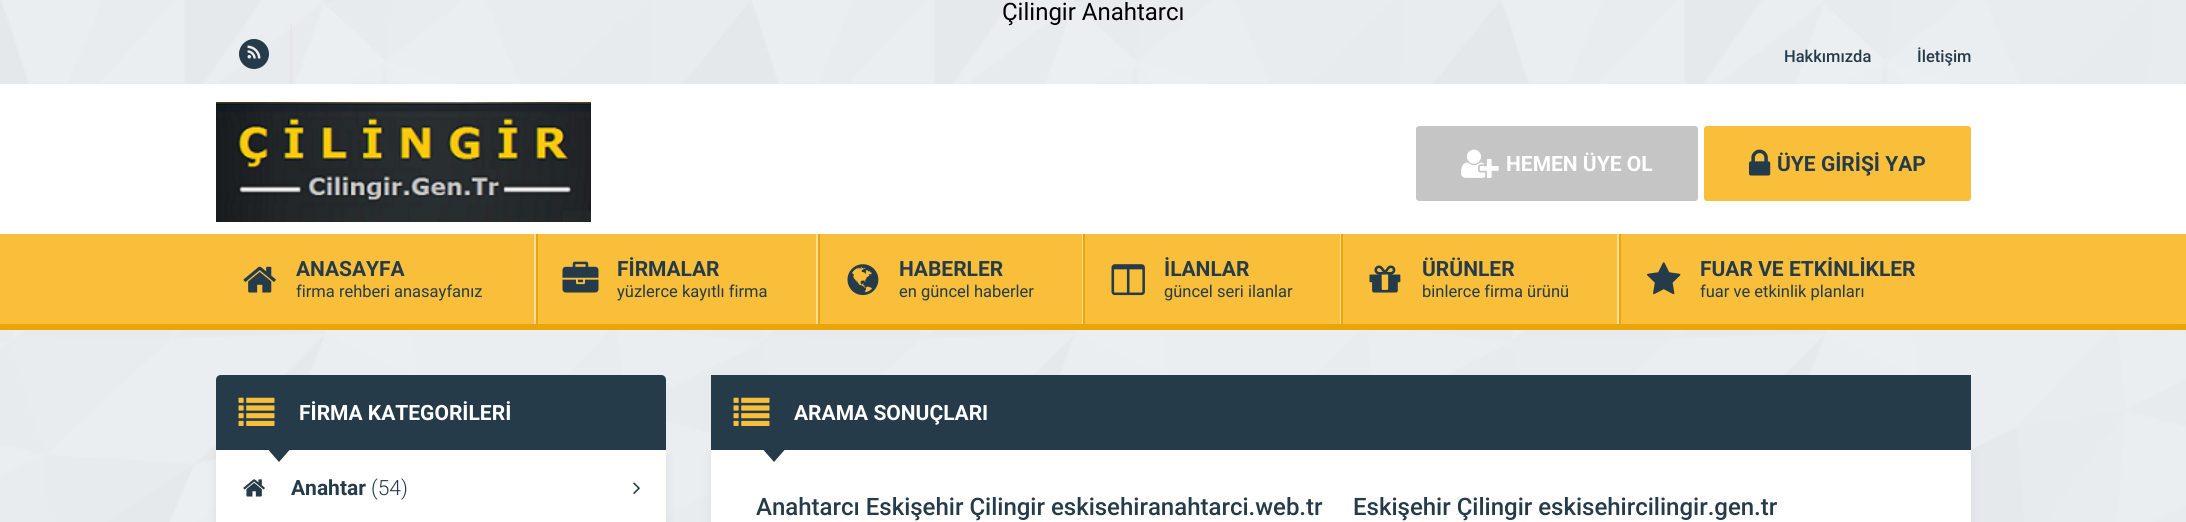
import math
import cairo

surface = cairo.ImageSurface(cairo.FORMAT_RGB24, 2186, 522)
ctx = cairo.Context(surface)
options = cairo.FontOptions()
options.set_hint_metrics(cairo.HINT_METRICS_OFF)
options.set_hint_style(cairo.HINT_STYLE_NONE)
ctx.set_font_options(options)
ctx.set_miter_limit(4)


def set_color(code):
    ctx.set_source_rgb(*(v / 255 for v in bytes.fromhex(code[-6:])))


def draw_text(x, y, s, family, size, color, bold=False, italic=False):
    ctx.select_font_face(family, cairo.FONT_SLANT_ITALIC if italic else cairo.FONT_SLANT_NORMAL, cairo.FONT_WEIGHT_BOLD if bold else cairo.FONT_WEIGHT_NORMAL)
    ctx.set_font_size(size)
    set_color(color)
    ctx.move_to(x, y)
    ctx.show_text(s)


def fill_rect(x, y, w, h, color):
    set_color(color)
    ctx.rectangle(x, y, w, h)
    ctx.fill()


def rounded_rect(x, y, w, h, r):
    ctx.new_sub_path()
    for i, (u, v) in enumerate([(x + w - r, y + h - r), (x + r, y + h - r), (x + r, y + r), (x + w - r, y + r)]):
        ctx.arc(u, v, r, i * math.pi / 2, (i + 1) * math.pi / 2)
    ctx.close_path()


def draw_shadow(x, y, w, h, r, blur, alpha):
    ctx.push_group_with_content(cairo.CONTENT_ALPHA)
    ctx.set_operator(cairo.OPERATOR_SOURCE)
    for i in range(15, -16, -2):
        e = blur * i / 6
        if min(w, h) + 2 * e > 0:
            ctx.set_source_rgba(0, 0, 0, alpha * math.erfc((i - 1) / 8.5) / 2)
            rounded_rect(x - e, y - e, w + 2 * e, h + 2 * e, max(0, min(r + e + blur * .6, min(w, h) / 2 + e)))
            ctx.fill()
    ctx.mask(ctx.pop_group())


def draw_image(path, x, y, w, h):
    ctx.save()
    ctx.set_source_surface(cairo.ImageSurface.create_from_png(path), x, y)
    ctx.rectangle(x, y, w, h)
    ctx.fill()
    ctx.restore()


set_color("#ffffff")
ctx.paint()
draw_image("assets/img1.png", 0, 0, 2186, 522)
draw_text(1002, 20, "Çilingir Anahtarcı", "Roboto", 24, "#000000")
fill_rect(290, 24, 2, 60, "#e6e6e6")
set_color("#253b49")
ctx.new_path()
ctx.arc(254, 54, 15, 0, 2 * math.pi)
ctx.fill()
draw_image("assets/img2.png", 247, 45, 14, 14)
draw_text(1784, 62, "Hakkımızda", "Roboto Medium", 16.5, "#253b49")
draw_text(1917, 62, "İletişim", "Roboto Medium", 16.5, "#253b49")
fill_rect(0, 84, 2186, 150, "#ffffff")
draw_image("assets/img3.png", 216, 102, 375, 120)
set_color("#c5c5c5")
rounded_rect(1416, 126, 282, 75, 3)
ctx.fill()
draw_image("assets/img4.png", 1461, 149, 38, 29)
draw_text(1506, 171, "HEMEN ÜYE OL", "Roboto", 21, "#ffffff", bold=True)
set_color("#f9bf3b")
rounded_rect(1704, 126, 267, 75, 3)
ctx.fill()
draw_image("assets/img5.png", 1749, 149, 22, 27)
draw_text(1777, 171, "ÜYE GİRİŞİ YAP", "Roboto", 21, "#253b49", bold=True)
fill_rect(0, 234, 2186, 90, "#f9bf3b")
fill_rect(0, 324, 2186, 6, "#eba507")
fill_rect(534, 234, 2, 90, "#fcdf9e")
draw_image("assets/img6.png", 243, 266, 33, 27)
draw_text(296, 276, "ANASAYFA", "Roboto", 21, "#253b49", bold=True)
draw_text(296, 297, "firma rehberi anasayfanız", "Roboto", 16.5, "#253b49")
fill_rect(816, 234, 2, 90, "#fcdf9e")
fill_rect(536, 234, 2, 90, "#eba507")
draw_image("assets/img7.png", 562, 261, 37, 32)
draw_text(617, 276, "FİRMALAR", "Roboto", 21, "#253b49", bold=True)
draw_text(617, 297, "yüzlerce kayıtlı firma", "Roboto", 16.5, "#253b49")
fill_rect(1082, 234, 1, 90, "#fcdf9e")
fill_rect(818, 234, 2, 90, "#eba507")
draw_image("assets/img8.png", 847, 264, 32, 32)
draw_text(899, 276, "HABERLER", "Roboto", 21, "#253b49", bold=True)
draw_text(899, 297, "en güncel haberler", "Roboto", 16.5, "#253b49")
fill_rect(1340, 234, 1, 90, "#fcdf9e")
fill_rect(1083, 234, 2, 90, "#eba507")
draw_image("assets/img9.png", 1111, 264, 34, 32)
draw_text(1164, 276, "İLANLAR", "Roboto", 21, "#253b49", bold=True)
draw_text(1164, 297, "güncel seri ilanlar", "Roboto", 16.5, "#253b49")
fill_rect(1617, 234, 2, 90, "#fcdf9e")
fill_rect(1341, 234, 2, 90, "#eba507")
draw_image("assets/img10.png", 1369, 265, 32, 28)
draw_text(1422, 276, "ÜRÜNLER", "Roboto", 21, "#253b49", bold=True)
draw_text(1422, 297, "binlerce firma ürünü", "Roboto", 16.5, "#253b49")
fill_rect(1619, 234, 2, 90, "#eba507")
draw_image("assets/img11.png", 1647, 262, 34, 33)
draw_text(1700, 276, "FUAR VE ETKİNLİKLER", "Roboto", 21, "#253b49", bold=True)
draw_text(1700, 297, "fuar ve etkinlik planları", "Roboto", 16.5, "#253b49")
set_color("#000000")
draw_shadow(216, 455, 450, 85, 0, 6, 0.06)
set_color("#253b49")
ctx.new_path()
ctx.move_to(221, 375)
ctx.line_to(661, 375)
ctx.curve_to(664, 375, 666, 377, 666, 380)
ctx.line_to(666, 450)
ctx.line_to(216, 450)
ctx.line_to(216, 380)
ctx.curve_to(216, 377, 218, 375, 221, 375)
ctx.close_path()
ctx.fill()
draw_image("assets/img12.png", 238, 397, 37, 29)
draw_text(299, 420, "FİRMA KATEGORİLERİ", "Roboto", 21, "#ffffff", bold=True)
fill_rect(216, 450, 450, 72, "#ffffff")
set_color("#253b49")
ctx.new_path()
ctx.move_to(268.5, 450)
ctx.line_to(289.5, 450)
ctx.line_to(279, 462)
ctx.close_path()
ctx.fill()
draw_image("assets/img13.png", 243, 479, 22, 18)
draw_text(291, 495, "Anahtar", "Roboto", 21, "#253b49", bold=True)
draw_text(371, 495, "(54)", "Roboto Light", 21, "#253b49")
draw_image("assets/img14.png", 633, 482, 7, 12)
set_color("#000000")
draw_shadow(711, 455, 1260, 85, 0, 6, 0.06)
fill_rect(711, 375, 1260, 75, "#253b49")
draw_image("assets/img12.png", 733, 397, 37, 29)
draw_text(794, 420, "ARAMA SONUÇLARI", "Roboto", 21, "#ffffff", bold=True)
fill_rect(711, 450, 1260, 72, "#ffffff")
set_color("#253b49")
ctx.new_path()
ctx.move_to(763.5, 450)
ctx.line_to(784.5, 450)
ctx.line_to(774, 462)
ctx.close_path()
ctx.fill()
draw_text(756, 515, "Anahtarcı Eskişehir Çilingir eskisehiranahtarci.web.tr", "Roboto Medium", 24, "#253b49")
draw_text(1353, 515, "Eskişehir Çilingir eskisehircilingir.gen.tr", "Roboto Medium", 24, "#253b49")
surface.write_to_png("output.png")
